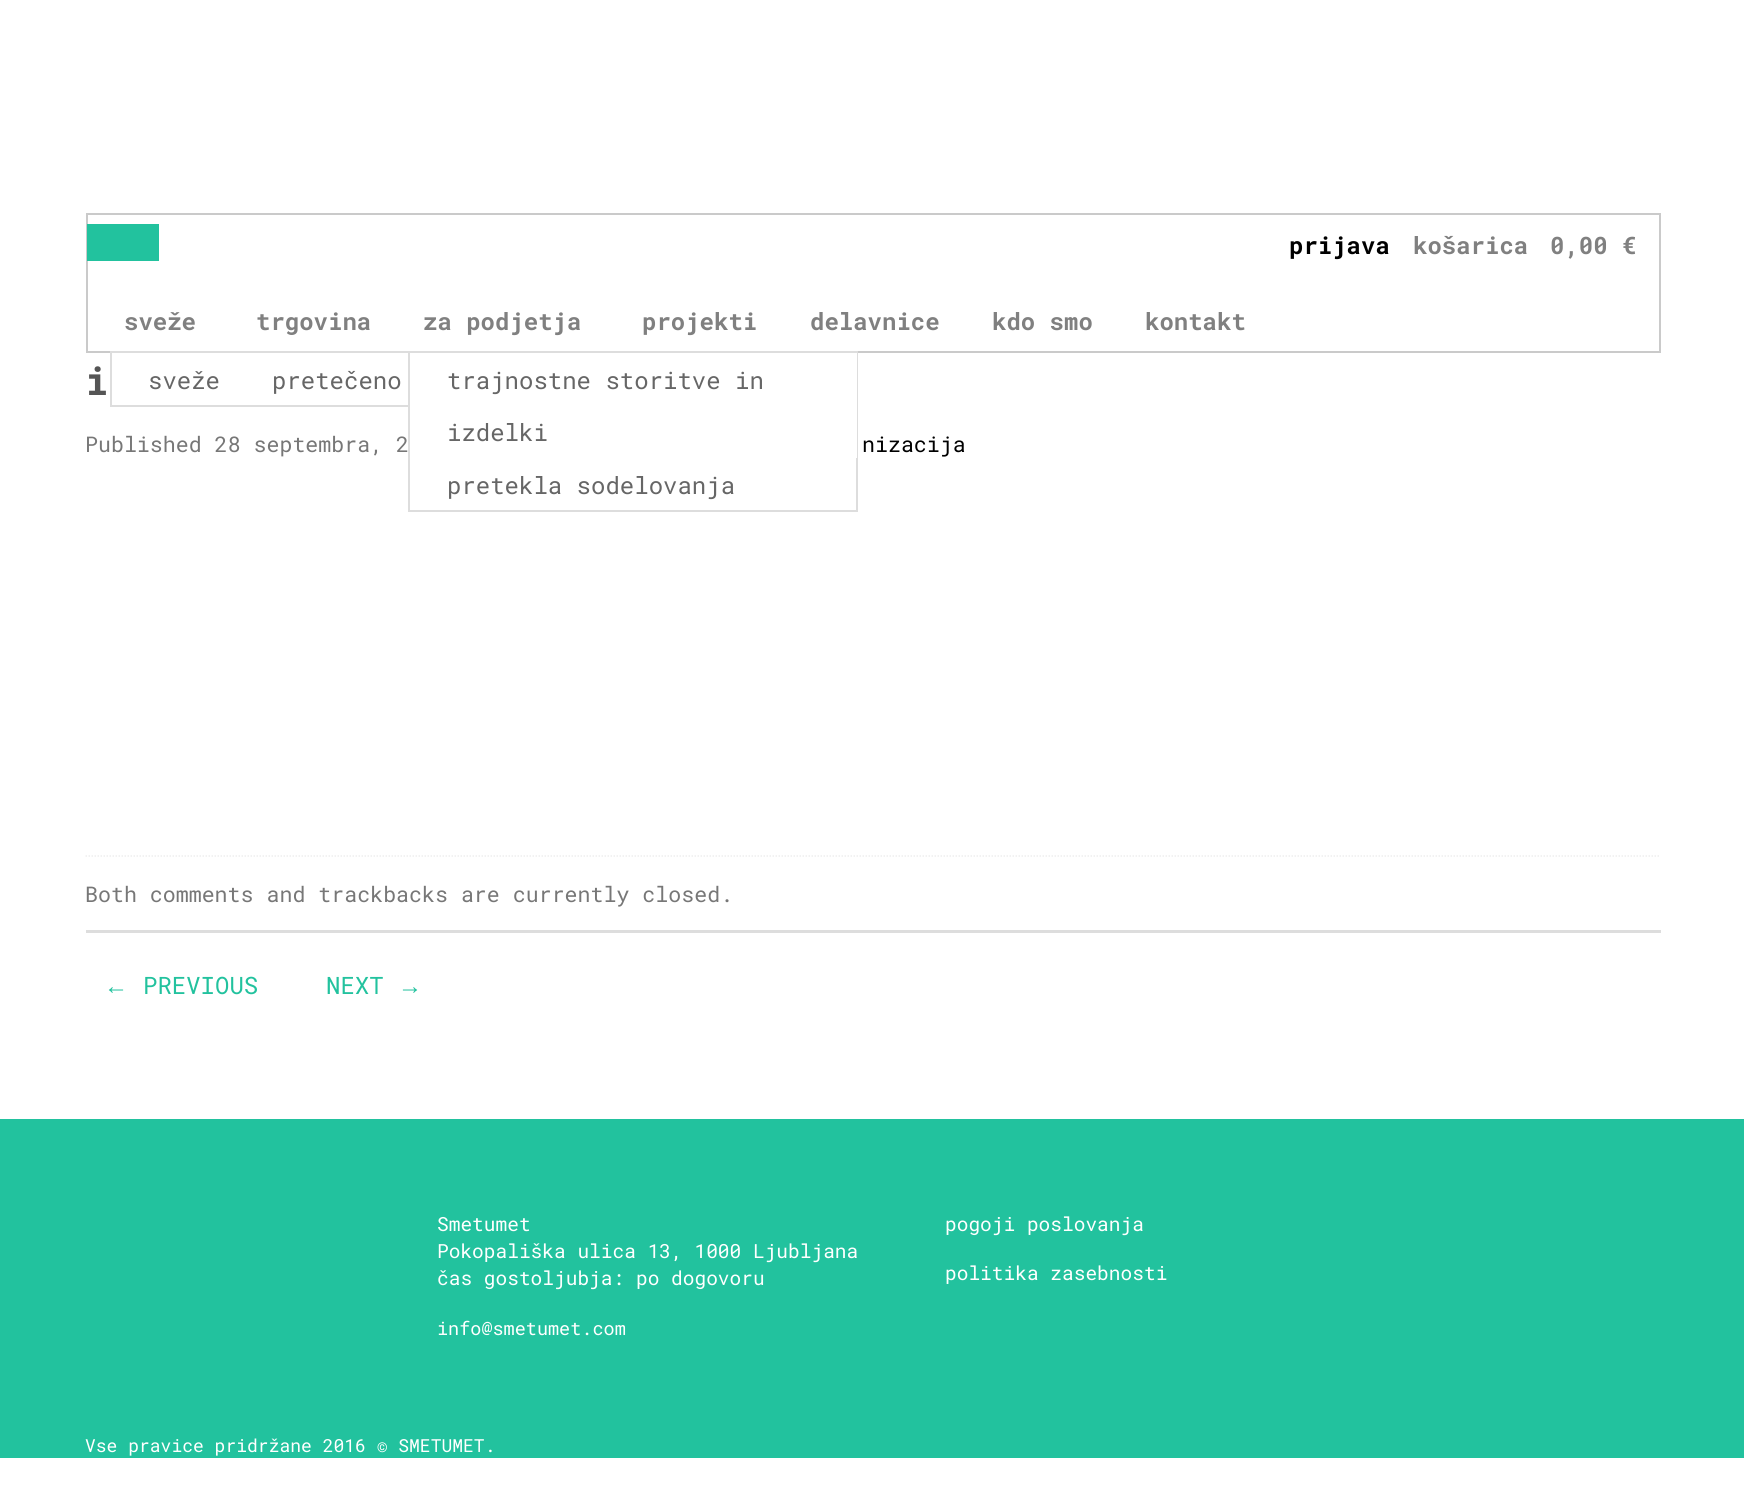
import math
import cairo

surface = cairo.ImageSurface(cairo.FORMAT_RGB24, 1744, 1508)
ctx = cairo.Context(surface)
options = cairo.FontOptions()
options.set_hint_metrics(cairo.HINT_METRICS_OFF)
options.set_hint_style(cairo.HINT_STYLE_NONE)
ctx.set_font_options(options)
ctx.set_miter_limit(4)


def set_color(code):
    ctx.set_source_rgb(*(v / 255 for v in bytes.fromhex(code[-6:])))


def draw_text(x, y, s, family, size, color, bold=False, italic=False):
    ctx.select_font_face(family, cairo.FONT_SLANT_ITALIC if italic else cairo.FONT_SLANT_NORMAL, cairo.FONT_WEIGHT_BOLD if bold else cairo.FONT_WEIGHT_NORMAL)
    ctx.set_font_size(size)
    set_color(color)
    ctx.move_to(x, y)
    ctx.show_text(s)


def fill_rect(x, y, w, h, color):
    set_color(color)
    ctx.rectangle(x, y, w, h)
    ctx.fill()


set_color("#ffffff")
ctx.paint()
ctx.rectangle(87, 214, 1573, 138)
set_color("#cacaca")
ctx.stroke()
draw_text(1289, 254, "prijava", "Roboto Mono", 24, "#000000", bold=True)
draw_text(1413, 254, "košarica", "Roboto Mono", 24, "#808080", bold=True)
draw_text(1550, 254, "0,00 €", "Roboto Mono", 24, "#808080", bold=True)
fill_rect(87, 224, 72, 37, "#22c29e")
draw_text(124, 330, "sveže", "Roboto Mono", 24, "#808080", bold=True)
ctx.rectangle(111, 352, 448, 54)
set_color("#dddddd")
ctx.stroke()
draw_text(148, 389, "sveže", "Roboto Mono", 24, "#666666")
draw_text(272, 389, "pretečeno", "Roboto Mono", 24, "#666666")
draw_text(256, 330, "trgovina", "Roboto Mono", 24, "#808080", bold=True)
draw_text(423, 330, "za podjetja", "Roboto Mono", 24, "#808080", bold=True)
fill_rect(410, 353, 150, 54, "#ffffff")
ctx.rectangle(409, 352, 448, 159)
set_color("#dddddd")
ctx.stroke()
fill_rect(856, 353, 1, 105, "#ffffff")
draw_text(447, 389, "trajnostne storitve in", "Roboto Mono", 24, "#666666")
draw_text(447, 441, "izdelki", "Roboto Mono", 24, "#666666")
draw_text(447, 494, "pretekla sodelovanja", "Roboto Mono", 24, "#666666")
draw_text(642, 330, "projekti", "Roboto Mono", 24, "#808080", bold=True)
draw_text(810, 330, "delavnice", "Roboto Mono", 24, "#808080", bold=True)
draw_text(992, 330, "kdo smo", "Roboto Mono", 24, "#808080", bold=True)
draw_text(1145, 330, "kontakt", "Roboto Mono", 24, "#808080", bold=True)
draw_text(85, 395, "i", "Roboto Mono", 39, "#555555", bold=True)
draw_text(85, 452, "Published 28 septembra, 2", "Roboto Mono", 21.6, "#777777")
draw_text(862, 452, "nizacija", "Roboto Mono", 21.6, "#000000")
ctx.new_path()
ctx.move_to(85.5, 856)
ctx.line_to(1660.5, 856)
set_color("#eeeeee")
ctx.set_line_width(1.5)
ctx.set_dash([1.5, 1.5])
ctx.stroke()
fill_rect(86, 930, 1575, 3, "#dddddd")
draw_text(85, 902, "Both comments and trackbacks are currently closed.", "Roboto Mono", 21.6, "#777777")
draw_text(104, 994, "←", "Liberation Sans", 24, "#22c29e")
draw_text(143, 994, "PREVIOUS", "Roboto Mono", 24, "#22c29e")
draw_text(326, 994, "NEXT", "Roboto Mono", 24, "#22c29e")
draw_text(398, 994, "→", "Liberation Sans", 24, "#22c29e")
fill_rect(0, 1119, 1744, 339, "#22c29e")
draw_text(437, 1231, "Smetumet", "Roboto Mono", 19.5, "#ffffff")
draw_text(437, 1258, "Pokopališka ulica 13, 1000 Ljubljana", "Roboto Mono", 19.5, "#ffffff")
draw_text(437, 1285, "čas gostoljubja: po dogovoru", "Roboto Mono", 19.5, "#ffffff")
draw_text(437, 1335, "info@smetumet.com", "Roboto Mono", 18.5, "#ffffff")
draw_text(945, 1231, "pogoji poslovanja", "Roboto Mono", 19.5, "#ffffff")
draw_text(945, 1280, "politika zasebnosti", "Roboto Mono", 19.5, "#ffffff")
draw_text(85, 1452, "Vse pravice pridržane 2016 © SMETUMET.", "Roboto Mono", 18, "#ffffff")
surface.write_to_png("output.png")
